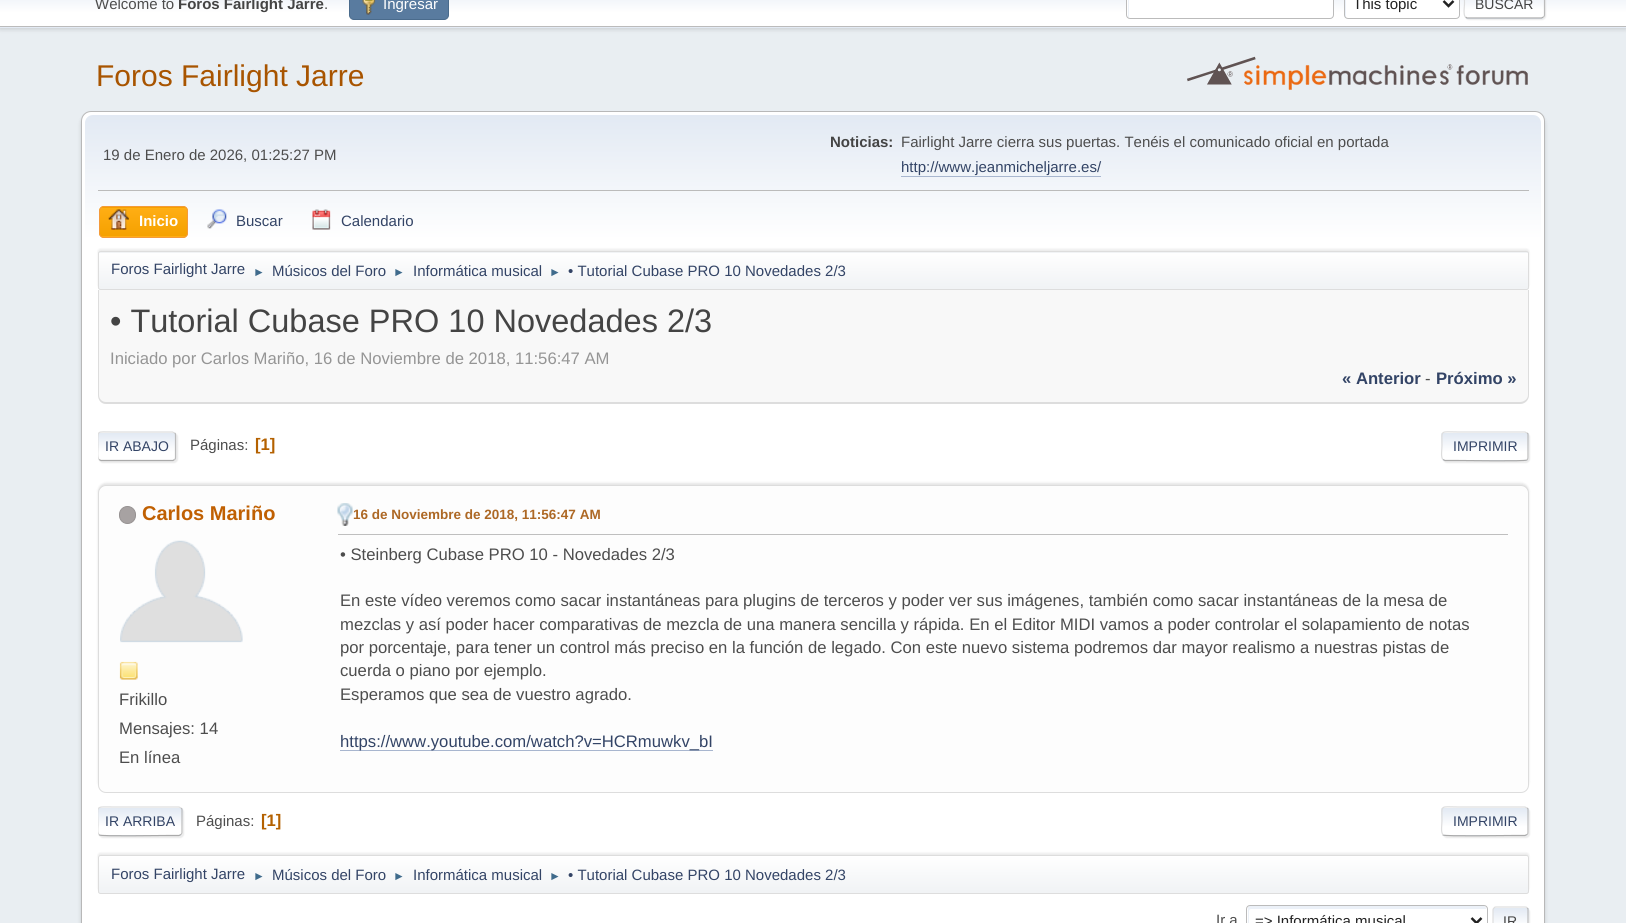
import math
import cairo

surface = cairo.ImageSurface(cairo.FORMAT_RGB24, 1626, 923)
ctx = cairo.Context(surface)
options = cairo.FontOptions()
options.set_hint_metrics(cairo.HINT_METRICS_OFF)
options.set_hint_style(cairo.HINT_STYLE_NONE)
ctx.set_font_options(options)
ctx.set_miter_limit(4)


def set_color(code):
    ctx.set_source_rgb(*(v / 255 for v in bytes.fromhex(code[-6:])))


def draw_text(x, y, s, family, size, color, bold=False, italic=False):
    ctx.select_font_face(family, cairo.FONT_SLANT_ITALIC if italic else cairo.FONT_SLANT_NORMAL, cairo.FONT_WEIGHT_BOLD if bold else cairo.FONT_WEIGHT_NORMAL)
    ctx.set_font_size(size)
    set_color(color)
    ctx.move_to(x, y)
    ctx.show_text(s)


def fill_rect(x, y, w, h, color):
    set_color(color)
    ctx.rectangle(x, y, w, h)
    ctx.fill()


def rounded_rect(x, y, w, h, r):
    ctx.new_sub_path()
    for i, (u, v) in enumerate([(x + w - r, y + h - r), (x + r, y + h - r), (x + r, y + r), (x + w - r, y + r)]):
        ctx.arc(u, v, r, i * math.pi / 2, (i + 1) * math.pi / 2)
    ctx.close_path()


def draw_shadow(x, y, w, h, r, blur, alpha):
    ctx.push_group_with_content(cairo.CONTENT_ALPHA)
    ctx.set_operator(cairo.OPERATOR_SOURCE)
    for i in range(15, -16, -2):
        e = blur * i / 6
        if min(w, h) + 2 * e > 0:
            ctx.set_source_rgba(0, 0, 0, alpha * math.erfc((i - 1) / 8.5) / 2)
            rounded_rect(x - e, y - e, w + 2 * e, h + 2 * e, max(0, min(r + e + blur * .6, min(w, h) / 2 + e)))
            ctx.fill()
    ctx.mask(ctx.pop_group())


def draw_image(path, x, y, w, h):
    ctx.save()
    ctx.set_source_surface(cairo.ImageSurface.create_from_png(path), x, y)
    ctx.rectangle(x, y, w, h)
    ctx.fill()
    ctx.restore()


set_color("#e9eef2")
ctx.paint()
set_color("#000000")
draw_shadow(0, -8, 1626, 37, 0, 2.5, 0.16)
gradient = cairo.LinearGradient(813, -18, 813, 26)
gradient.add_color_stop_rgba(0, 0.886, 0.914, 0.953, 1)
gradient.add_color_stop_rgba(0.7, 1, 1, 1, 1)
ctx.set_source(gradient)
ctx.rectangle(0, 0, 1626, 26)
ctx.fill()
gradient = cairo.LinearGradient(813, 26, 813, 70)
gradient.add_color_stop_rgba(0, 0.886, 0.914, 0.953, 1)
gradient.add_color_stop_rgba(0.7, 1, 1, 1, 1)
ctx.set_source(gradient)
ctx.rectangle(0, 27, 1626, 1)
ctx.fill()
fill_rect(0, 26, 1626, 1, "#bbbbbb")
draw_text(95, 9, "Welcome to", "Liberation Sans", 15, "#4d4d4d")
draw_text(178, 9, "Foros Fairlight Jarre", "Liberation Sans", 15, "#444444", bold=True)
draw_text(324, 9, ".", "Liberation Sans", 15, "#4d4d4d")
set_color("#597b9f")
rounded_rect(349.5, -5.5, 99, 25, 4.5)
ctx.fill_preserve()
set_color("#4a6b8c")
ctx.set_line_width(1)
ctx.stroke()
draw_image("assets/img1.png", 362, 0, 14, 15)
draw_text(383, 9, "Ingresar", "Liberation Sans", 15, "#ffffff")
rounded_rect(1126, -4, 208, 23, 4)
ctx.fill()
set_color("#ecf1f8")
ctx.new_path()
ctx.move_to(1131, -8)
ctx.line_to(1332, -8)
ctx.line_to(1333, -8)
ctx.curve_to(1333, -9, 1332, -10, 1330, -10)
ctx.line_to(1130, -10)
ctx.curve_to(1129, -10, 1128, -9, 1128, -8)
ctx.line_to(1128, 16)
ctx.curve_to(1128, 16, 1128, 17, 1129, 18)
ctx.line_to(1129, -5)
ctx.curve_to(1129, -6, 1130, -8, 1131, -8)
ctx.close_path()
ctx.fill()
rounded_rect(1126.5, -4.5, 207, 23, 3.5)
set_color("#bbbbbb")
ctx.stroke()
set_color("#ffffff")
rounded_rect(1344, -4, 116, 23, 4)
ctx.fill()
set_color("#ecf1f8")
ctx.new_path()
ctx.move_to(1349, -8)
ctx.line_to(1458, -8)
ctx.line_to(1459, -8)
ctx.curve_to(1459, -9, 1458, -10, 1456, -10)
ctx.line_to(1348, -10)
ctx.curve_to(1346, -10, 1345, -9, 1345, -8)
ctx.line_to(1345, 16)
ctx.curve_to(1345, 16, 1345, 17, 1346, 18)
ctx.line_to(1346, -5)
ctx.curve_to(1346, -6, 1347, -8, 1349, -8)
ctx.close_path()
ctx.fill()
rounded_rect(1344.5, -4.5, 115, 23, 3.5)
set_color("#bbbbbb")
ctx.stroke()
ctx.new_path()
ctx.move_to(1443.5, 1)
ctx.line_to(1448.5, 6)
ctx.line_to(1453.5, 1)
set_color("#222222")
ctx.set_line_width(2.5)
ctx.stroke()
draw_text(1353, 9, "This topic", "Liberation Sans", 15, "#222222")
set_color("#dddddd")
draw_shadow(1465, -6, 81, 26, 4, 0.5, 0.57)
ctx.save()
rounded_rect(1464, -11, 81, 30, 4)
ctx.clip()
gradient = cairo.LinearGradient(1504, -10, 1504, 18)
gradient.add_color_stop_rgba(0, 0.886, 0.914, 0.953, 1)
gradient.add_color_stop_rgba(0.7, 1, 1, 1, 1)
ctx.set_source(gradient)
ctx.rectangle(1464, 0, 81, 18)
ctx.fill()
gradient = cairo.LinearGradient(1504, 17, 1504, 45)
gradient.add_color_stop_rgba(0, 0.886, 0.914, 0.953, 1)
gradient.add_color_stop_rgba(0.7, 1, 1, 1, 1)
ctx.set_source(gradient)
ctx.rectangle(1464, 18, 81, 1)
ctx.fill()
ctx.restore()
ctx.new_path()
ctx.move_to(1543.5, -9.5)
ctx.curve_to(1544, -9, 1544.5, -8.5, 1544.5, -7.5)
ctx.line_to(1544.5, 15)
ctx.curve_to(1544.5, 16, 1544, 16.5, 1543.5, 17)
set_color("#bbbbbb")
ctx.set_line_width(1.2)
ctx.stroke()
ctx.new_path()
ctx.move_to(1543.5, 17)
ctx.line_to(1541.5, 18)
ctx.line_to(1467, 18)
ctx.line_to(1465.5, 17)
set_color("#aaaaaa")
ctx.stroke()
ctx.new_path()
ctx.move_to(1465.5, 17)
ctx.curve_to(1463, 15, 1464.5, 6.5, 1464.5, 4)
ctx.curve_to(1464.5, -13.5, 1462, -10.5, 1480, -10.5)
ctx.line_to(1541, -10.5)
ctx.line_to(1543.5, -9.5)
set_color("#dddddd")
ctx.stroke()
draw_text(1475, 9, "BUSCAR", "Liberation Sans", 14, "#444444")
draw_text(96, 86, "Foros Fairlight Jarre", "Liberation Sans", 30, "#a85400")
draw_image("assets/img2.png", 1187, 56, 341, 34)
set_color("#000000")
draw_shadow(81, 114, 1464, 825, 10, 2, 0.14)
set_color("#ffffff")
rounded_rect(81.5, 111.5, 1463, 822, 9.5)
ctx.fill_preserve()
set_color("#b8b8b8")
ctx.set_line_width(1)
ctx.stroke()
gradient = cairo.LinearGradient(813, 115, 813, 293)
gradient.add_color_stop_rgba(0, 0.886, 0.914, 0.953, 1)
gradient.add_color_stop_rgba(0.7, 1, 1, 1, 1)
ctx.set_source(gradient)
ctx.new_path()
ctx.move_to(93, 115)
ctx.line_to(1533, 115)
ctx.curve_to(1537.5, 115, 1541, 118.5, 1541, 123)
ctx.line_to(1541, 293)
ctx.line_to(85, 293)
ctx.line_to(85, 123)
ctx.curve_to(85, 118.5, 88.5, 115, 93, 115)
ctx.close_path()
ctx.fill()
fill_rect(98, 190, 1431, 1, "#bbbbbb")
draw_text(103, 160, "19 de Enero de 2026, 01:25:27 PM", "Liberation Sans", 15, "#4d4d4d")
draw_text(830, 147, "Noticias:", "Liberation Sans", 15, "#444444", bold=True)
draw_text(901, 147, "Fairlight Jarre cierra sus puertas. Tenéis el comunicado oficial en portada", "Liberation Sans", 15, "#4d4d4d")
draw_text(901, 172, "http://www.jeanmicheljarre.es/", "Liberation Sans", 15, "#334466")
fill_rect(901, 176, 200, 1, "#a8b6cf")
ctx.save()
rounded_rect(99, 206, 89, 32, 5)
ctx.clip()
gradient = cairo.LinearGradient(143, 179, 143, 208)
gradient.add_color_stop_rgba(0, 1, 0.682, 0.078, 1)
gradient.add_color_stop_rgba(1, 0.961, 0.631, 0, 1)
ctx.set_source(gradient)
ctx.rectangle(99, 206, 89, 2)
ctx.fill()
gradient = cairo.LinearGradient(143, 208, 143, 236)
gradient.add_color_stop_rgba(0, 1, 0.682, 0.078, 1)
gradient.add_color_stop_rgba(1, 0.961, 0.631, 0, 1)
ctx.set_source(gradient)
ctx.rectangle(99, 208, 89, 28)
ctx.fill()
gradient = cairo.LinearGradient(143, 236, 143, 265)
gradient.add_color_stop_rgba(0, 1, 0.682, 0.078, 1)
gradient.add_color_stop_rgba(1, 0.961, 0.631, 0, 1)
ctx.set_source(gradient)
ctx.rectangle(99, 236, 89, 2)
ctx.fill()
ctx.restore()
rounded_rect(99.5, 206.5, 88, 31, 4.5)
set_color("#f49a3a")
ctx.stroke()
draw_image("assets/img3.png", 108, 209, 21, 21)
draw_text(139, 226, "Inicio", "Liberation Sans", 15, "#ffffff", bold=True)
draw_image("assets/img4.png", 207, 209, 20, 20)
draw_text(236, 226, "Buscar", "Liberation Sans", 15, "#334466")
draw_image("assets/img5.png", 312, 209, 19, 21)
draw_text(341, 226, "Calendario", "Liberation Sans", 15, "#334466")
set_color("#000000")
draw_shadow(98, 249, 1431, 39, 2.5, 1, 0.08)
ctx.save()
rounded_rect(98, 251, 1431, 39, 2.5)
ctx.clip()
gradient = cairo.LinearGradient(813, 216, 813, 253)
gradient.add_color_stop_rgba(0, 1, 1, 1, 1)
gradient.add_color_stop_rgba(0.95, 0.945, 0.953, 0.961, 1)
ctx.set_source(gradient)
ctx.rectangle(98, 251, 1431, 2)
ctx.fill()
ctx.restore()
gradient = cairo.LinearGradient(813, 252, 813, 289)
gradient.add_color_stop_rgba(0, 1, 1, 1, 1)
gradient.add_color_stop_rgba(0.95, 0.945, 0.953, 0.961, 1)
ctx.set_source(gradient)
ctx.rectangle(98, 253, 1431, 36)
ctx.fill()
rounded_rect(98.5, 251.5, 1430, 38, 2)
set_color("#dddddd")
ctx.stroke()
draw_text(111, 274, "Foros Fairlight Jarre", "Liberation Sans", 15, "#334466")
draw_text(253, 276, "►", "Liberation Sans", 12, "#3f6b8c")
draw_text(272, 276, "Músicos del Foro", "Liberation Sans", 15, "#334466")
draw_text(393, 276, "►", "Liberation Sans", 12, "#3f6b8c")
draw_text(413, 276, "Informática musical", "Liberation Sans", 15, "#334466")
draw_text(549, 276, "►", "Liberation Sans", 12, "#3f6b8c")
draw_text(568, 276, "• Tutorial Cubase PRO 10 Novedades 2/3", "Liberation Sans", 15, "#334466")
set_color("#f8f8f8")
ctx.new_path()
ctx.move_to(98, 290)
ctx.line_to(1529, 290)
ctx.line_to(1529, 395)
ctx.curve_to(1529, 400, 1525, 404, 1520, 404)
ctx.line_to(107, 404)
ctx.curve_to(102, 404, 98, 400, 98, 395)
ctx.close_path()
ctx.fill()
set_color("#dddddd")
ctx.set_fill_rule(cairo.FILL_RULE_EVEN_ODD)
ctx.new_path()
ctx.move_to(98, 290)
ctx.line_to(1529, 290)
ctx.line_to(1529, 395)
ctx.curve_to(1529, 400, 1525, 404, 1520, 404)
ctx.line_to(106, 404)
ctx.curve_to(101, 404, 98, 400, 98, 395)
ctx.close_path()
ctx.move_to(99, 290)
ctx.line_to(1528, 290)
ctx.line_to(1528, 395)
ctx.curve_to(1528, 399, 1524, 402, 1520, 402)
ctx.line_to(106, 402)
ctx.curve_to(102, 402, 99, 399, 99, 395)
ctx.close_path()
ctx.fill()
draw_text(110, 332, "• Tutorial Cubase PRO 10 Novedades 2/3", "Liberation Sans", 32.5, "#444444")
draw_text(110, 364, "Iniciado por Carlos Mariño, 16 de Noviembre de 2018, 11:56:47 AM", "Liberation Sans", 16.67, "#959595")
draw_text(1342, 384, "« Anterior", "Liberation Sans", 16.67, "#334466", bold=True)
draw_text(1425, 384, "-", "Liberation Sans", 16.67, "#4d4d4d")
draw_text(1436, 384, "Próximo »", "Liberation Sans", 16.67, "#334466", bold=True)
set_color("#dddddd")
draw_shadow(99, 433, 79, 30, 4, 0.5, 0.57)
ctx.save()
ctx.set_fill_rule(cairo.FILL_RULE_WINDING)
rounded_rect(98, 431, 78, 30, 4)
ctx.clip()
gradient = cairo.LinearGradient(137, 433, 137, 460)
gradient.add_color_stop_rgba(0, 0.886, 0.914, 0.953, 1)
gradient.add_color_stop_rgba(0.7, 1, 1, 1, 1)
ctx.set_source(gradient)
ctx.rectangle(98, 433, 78, 27)
ctx.fill()
ctx.restore()
ctx.new_path()
ctx.move_to(174.5, 433)
ctx.curve_to(175.5, 433.5, 175.5, 434, 175.5, 435)
ctx.line_to(175.5, 457.5)
ctx.curve_to(175.5, 458.5, 175.5, 459, 174.5, 459.5)
set_color("#bbbbbb")
ctx.set_line_width(1.2)
ctx.stroke()
ctx.new_path()
ctx.move_to(174.5, 459.5)
ctx.line_to(173, 460.5)
ctx.line_to(101, 460.5)
ctx.line_to(99, 459.5)
set_color("#aaaaaa")
ctx.stroke()
ctx.save()
ctx.set_fill_rule(cairo.FILL_RULE_WINDING)
ctx.rectangle(98, 423, 1431, 47)
ctx.clip()
ctx.new_path()
ctx.move_to(99, 459.5)
ctx.curve_to(97, 457.5, 98, 449, 98, 446)
ctx.curve_to(98, 429.5, 95.5, 432, 113, 432)
ctx.line_to(172.5, 432)
ctx.line_to(174.5, 433)
set_color("#dddddd")
ctx.stroke()
ctx.restore()
draw_text(105, 451, "IR ABAJO", "Liberation Sans", 14, "#334466")
draw_text(190, 450, "Páginas:", "Liberation Sans", 15, "#4d4d4d")
draw_text(255, 450, "[1]", "Liberation Sans", 16.67, "#b46100", bold=True)
ctx.save()
ctx.new_path()
ctx.move_to(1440, 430)
ctx.line_to(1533, 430)
ctx.line_to(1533, 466)
ctx.line_to(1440, 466)
ctx.close_path()
ctx.move_to(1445, 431)
ctx.line_to(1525, 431)
ctx.curve_to(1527, 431, 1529, 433, 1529, 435)
ctx.line_to(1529, 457)
ctx.curve_to(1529, 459, 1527, 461, 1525, 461)
ctx.line_to(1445, 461)
ctx.curve_to(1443, 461, 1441, 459, 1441, 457)
ctx.line_to(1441, 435)
ctx.curve_to(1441, 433, 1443, 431, 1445, 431)
ctx.close_path()
ctx.clip()
set_color("#dddddd")
draw_shadow(1443, 433, 87, 30, 4, 0.5, 0.57)
ctx.restore()
set_color("#ffffff")
rounded_rect(1441, 431, 88, 30, 4)
ctx.fill()
ctx.save()
ctx.set_fill_rule(cairo.FILL_RULE_WINDING)
rounded_rect(1441, 431, 88, 30, 4)
ctx.clip()
gradient = cairo.LinearGradient(1485, 433, 1485, 460)
gradient.add_color_stop_rgba(0, 0.886, 0.914, 0.953, 1)
gradient.add_color_stop_rgba(0.7, 1, 1, 1, 1)
ctx.set_source(gradient)
ctx.rectangle(1441, 433, 88, 27)
ctx.fill()
gradient = cairo.LinearGradient(1485, 460, 1485, 488)
gradient.add_color_stop_rgba(0, 0.886, 0.914, 0.953, 1)
gradient.add_color_stop_rgba(0.7, 1, 1, 1, 1)
ctx.set_source(gradient)
ctx.rectangle(1441, 460, 88, 1)
ctx.fill()
ctx.restore()
ctx.new_path()
ctx.move_to(1527, 433)
ctx.curve_to(1528, 433.5, 1528, 434, 1528, 435)
ctx.line_to(1528, 457.5)
ctx.curve_to(1528, 458.5, 1528, 459, 1527, 459.5)
set_color("#bbbbbb")
ctx.stroke()
ctx.new_path()
ctx.move_to(1527, 459.5)
ctx.line_to(1527, 460)
ctx.curve_to(1525, 461.5, 1466, 460.5, 1458.5, 460.5)
ctx.line_to(1445, 460.5)
ctx.line_to(1443, 459.5)
set_color("#aaaaaa")
ctx.stroke()
ctx.new_path()
ctx.move_to(1443, 459.5)
ctx.curve_to(1440.5, 457.5, 1442, 449, 1442, 446)
ctx.curve_to(1442, 429, 1439.5, 432, 1458.5, 432)
ctx.line_to(1525, 432)
ctx.line_to(1527, 433)
set_color("#dddddd")
ctx.stroke()
draw_text(1453, 451, "IMPRIMIR", "Liberation Sans", 14, "#334466")
set_color("#000000")
draw_shadow(98, 483, 1431, 307, 8, 1, 0.1)
set_color("#fdfdfd")
rounded_rect(98.5, 485.5, 1430, 307, 7.5)
ctx.fill_preserve()
set_color("#dddddd")
ctx.set_line_width(1)
ctx.stroke()
set_color("#a7a2a2")
rounded_rect(119.5, 506.5, 16, 17, 8)
ctx.fill_preserve()
set_color("#969292")
ctx.stroke()
draw_text(142, 520, "Carlos Mariño", "Liberation Sans", 20, "#c06002", bold=True)
draw_image("assets/img6.png", 120, 540, 123, 103)
draw_image("assets/img7.png", 119, 661, 19, 19)
draw_text(119, 705, "Frikillo", "Liberation Sans", 16.67, "#4d4d4d")
draw_text(119, 734, "Mensajes: 14", "Liberation Sans", 16.67, "#4d4d4d")
draw_text(119, 763, "En línea", "Liberation Sans", 16.67, "#4d4d4d")
draw_image("assets/img8.png", 337, 503, 16, 23)
draw_text(353, 519, "16 de Noviembre de 2018, 11:56:47 AM", "Liberation Sans", 13.5, "#ad6825", bold=True)
fill_rect(338, 534, 1170, 1, "#bfbfbf")
draw_text(340, 560, "• Steinberg Cubase PRO 10 - Novedades 2/3", "Liberation Sans", 16.67, "#4d4d4d")
draw_text(340, 606, "En este vídeo veremos como sacar instantáneas para plugins de terceros y poder ver sus imágenes, también como sacar instantáneas de la mesa de", "Liberation Sans", 16.67, "#4d4d4d")
draw_text(340, 630, "mezclas y así poder hacer comparativas de mezcla de una manera sencilla y rápida. En el Editor MIDI vamos a poder controlar el solapamiento de notas", "Liberation Sans", 16.67, "#4d4d4d")
draw_text(340, 653, "por porcentaje, para tener un control más preciso en la función de legado. Con este nuevo sistema podremos dar mayor realismo a nuestras pistas de", "Liberation Sans", 16.67, "#4d4d4d")
draw_text(340, 676, "cuerda o piano por ejemplo.", "Liberation Sans", 16.67, "#4d4d4d")
draw_text(340, 700, "Esperamos que sea de vuestro agrado.", "Liberation Sans", 16.67, "#4d4d4d")
fill_rect(340, 750, 373, 1, "#a8b6cf")
draw_text(340, 747, "https://www.youtube.com/watch?v=HCRmuwkv_bI", "Liberation Sans", 16.67, "#334466")
set_color("#dddddd")
draw_shadow(99, 808, 85, 30, 4, 0.5, 0.57)
set_color("#ffffff")
rounded_rect(98, 806, 85, 30, 4)
ctx.fill()
ctx.save()
ctx.set_fill_rule(cairo.FILL_RULE_WINDING)
rounded_rect(98, 806, 85, 30, 4)
ctx.clip()
gradient = cairo.LinearGradient(140, 808, 140, 835)
gradient.add_color_stop_rgba(0, 0.886, 0.914, 0.953, 1)
gradient.add_color_stop_rgba(0.7, 1, 1, 1, 1)
ctx.set_source(gradient)
ctx.rectangle(98, 808, 85, 27)
ctx.fill()
gradient = cairo.LinearGradient(140, 835, 140, 863)
gradient.add_color_stop_rgba(0, 0.886, 0.914, 0.953, 1)
gradient.add_color_stop_rgba(0.7, 1, 1, 1, 1)
ctx.set_source(gradient)
ctx.rectangle(98, 835, 85, 1)
ctx.fill()
ctx.restore()
ctx.new_path()
ctx.move_to(181, 808)
ctx.curve_to(181.5, 808.5, 182, 809, 182, 810)
ctx.line_to(182, 832.5)
ctx.curve_to(182, 833.5, 181.5, 834, 181, 834.5)
set_color("#bbbbbb")
ctx.set_line_width(1.2)
ctx.stroke()
ctx.new_path()
ctx.move_to(181, 834.5)
ctx.line_to(179, 835.5)
ctx.line_to(166, 835.5)
ctx.curve_to(158.5, 835.5, 101.5, 836.5, 99.5, 835)
ctx.line_to(99, 834.5)
set_color("#aaaaaa")
ctx.stroke()
ctx.save()
ctx.set_fill_rule(cairo.FILL_RULE_WINDING)
ctx.rectangle(98, 798, 1431, 47)
ctx.clip()
ctx.new_path()
ctx.move_to(99, 834.5)
ctx.curve_to(97, 832.5, 98, 827.5, 98, 825)
ctx.curve_to(98, 804.5, 94, 807, 114, 807)
ctx.line_to(179, 807)
ctx.line_to(181, 808)
set_color("#dddddd")
ctx.stroke()
ctx.restore()
draw_text(105, 826, "IR ARRIBA", "Liberation Sans", 14, "#334466")
draw_text(196, 826, "Páginas:", "Liberation Sans", 15, "#4d4d4d")
draw_text(261, 826, "[1]", "Liberation Sans", 16.67, "#b46100", bold=True)
ctx.save()
ctx.new_path()
ctx.move_to(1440, 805)
ctx.line_to(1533, 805)
ctx.line_to(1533, 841)
ctx.line_to(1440, 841)
ctx.close_path()
ctx.move_to(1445, 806)
ctx.line_to(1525, 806)
ctx.curve_to(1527, 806, 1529, 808, 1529, 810)
ctx.line_to(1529, 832)
ctx.curve_to(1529, 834, 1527, 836, 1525, 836)
ctx.line_to(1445, 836)
ctx.curve_to(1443, 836, 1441, 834, 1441, 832)
ctx.line_to(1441, 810)
ctx.curve_to(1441, 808, 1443, 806, 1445, 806)
ctx.close_path()
ctx.clip()
set_color("#dddddd")
draw_shadow(1443, 808, 87, 30, 4, 0.5, 0.57)
ctx.restore()
set_color("#ffffff")
rounded_rect(1441, 806, 88, 30, 4)
ctx.fill()
ctx.save()
ctx.set_fill_rule(cairo.FILL_RULE_WINDING)
rounded_rect(1441, 806, 88, 30, 4)
ctx.clip()
gradient = cairo.LinearGradient(1485, 808, 1485, 835)
gradient.add_color_stop_rgba(0, 0.886, 0.914, 0.953, 1)
gradient.add_color_stop_rgba(0.7, 1, 1, 1, 1)
ctx.set_source(gradient)
ctx.rectangle(1441, 808, 88, 27)
ctx.fill()
gradient = cairo.LinearGradient(1485, 835, 1485, 863)
gradient.add_color_stop_rgba(0, 0.886, 0.914, 0.953, 1)
gradient.add_color_stop_rgba(0.7, 1, 1, 1, 1)
ctx.set_source(gradient)
ctx.rectangle(1441, 835, 88, 1)
ctx.fill()
ctx.restore()
ctx.new_path()
ctx.move_to(1527, 808)
ctx.curve_to(1528, 808.5, 1528, 809, 1528, 810)
ctx.line_to(1528, 832.5)
ctx.curve_to(1528, 833.5, 1528, 834, 1527, 834.5)
set_color("#bbbbbb")
ctx.stroke()
ctx.new_path()
ctx.move_to(1527, 834.5)
ctx.line_to(1525, 835.5)
ctx.line_to(1511.5, 835.5)
ctx.curve_to(1504, 835.5, 1445, 836.5, 1443, 835)
ctx.line_to(1443, 834.5)
set_color("#aaaaaa")
ctx.stroke()
ctx.new_path()
ctx.move_to(1443, 834.5)
ctx.curve_to(1440.5, 832.5, 1442, 824, 1442, 821)
ctx.curve_to(1442, 804, 1439.5, 807, 1458.5, 807)
ctx.line_to(1525, 807)
ctx.line_to(1527, 808)
set_color("#dddddd")
ctx.stroke()
draw_text(1453, 826, "IMPRIMIR", "Liberation Sans", 14, "#334466")
set_color("#000000")
draw_shadow(98, 853, 1431, 38, 2.5, 1, 0.08)
ctx.save()
ctx.set_fill_rule(cairo.FILL_RULE_WINDING)
rounded_rect(98, 855, 1431, 39, 2.5)
ctx.clip()
gradient = cairo.LinearGradient(813, 856, 813, 893)
gradient.add_color_stop_rgba(0, 1, 1, 1, 1)
gradient.add_color_stop_rgba(0.95, 0.945, 0.953, 0.961, 1)
ctx.set_source(gradient)
ctx.rectangle(98, 856, 1431, 37)
ctx.fill()
ctx.restore()
rounded_rect(98.5, 855.5, 1430, 38, 2)
set_color("#dddddd")
ctx.set_line_width(1)
ctx.stroke()
draw_text(111, 879, "Foros Fairlight Jarre", "Liberation Sans", 15, "#334466")
draw_text(253, 880, "►", "Liberation Sans", 12, "#3f6b8c")
draw_text(272, 880, "Músicos del Foro", "Liberation Sans", 15, "#334466")
draw_text(393, 880, "►", "Liberation Sans", 12, "#3f6b8c")
draw_text(413, 880, "Informática musical", "Liberation Sans", 15, "#334466")
draw_text(549, 880, "►", "Liberation Sans", 12, "#3f6b8c")
draw_text(568, 880, "• Tutorial Cubase PRO 10 Novedades 2/3", "Liberation Sans", 15, "#334466")
draw_text(1216, 925, "Ir a", "Liberation Sans", 15, "#4d4d4d")
set_color("#ecf1f8")
ctx.set_fill_rule(cairo.FILL_RULE_WINDING)
ctx.new_path()
ctx.move_to(1251, 909)
ctx.line_to(1486, 909)
ctx.curve_to(1486, 908, 1486, 907, 1484, 906)
ctx.line_to(1250, 906)
ctx.curve_to(1247, 906, 1248, 910, 1248, 912)
ctx.line_to(1248, 920)
ctx.curve_to(1248, 922, 1247, 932, 1249, 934)
ctx.line_to(1249, 911)
ctx.curve_to(1249, 910, 1250, 909, 1251, 909)
ctx.close_path()
ctx.fill()
rounded_rect(1246.5, 905.5, 241, 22, 3.5)
set_color("#bbbbbb")
ctx.stroke()
ctx.new_path()
ctx.move_to(1471.5, 918)
ctx.line_to(1476.5, 923)
ctx.line_to(1481.5, 918)
set_color("#222222")
ctx.set_line_width(2.5)
ctx.stroke()
draw_text(1255, 926, "=> Informática musical", "Liberation Sans", 15, "#222222")
set_color("#dddddd")
draw_shadow(1494, 908, 36, 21, 4, 0.5, 0.57)
set_color("#ffffff")
rounded_rect(1493, 906, 36, 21, 4)
ctx.fill()
gradient = cairo.LinearGradient(1511, 908, 1511, 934)
gradient.add_color_stop_rgba(0, 0.886, 0.914, 0.953, 1)
gradient.add_color_stop_rgba(0.7, 1, 1, 1, 1)
ctx.set_source(gradient)
ctx.rectangle(1493, 908, 36, 15)
ctx.fill()
ctx.new_path()
ctx.move_to(1527, 908)
ctx.curve_to(1528, 908.5, 1528, 909, 1528, 910)
ctx.line_to(1528, 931)
ctx.curve_to(1528, 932, 1528, 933, 1527, 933.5)
set_color("#bbbbbb")
ctx.set_line_width(1.2)
ctx.stroke()
ctx.new_path()
ctx.move_to(1494, 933.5)
ctx.curve_to(1493.5, 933, 1493, 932, 1493, 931)
ctx.line_to(1493, 910)
ctx.curve_to(1493, 909, 1493.5, 908.5, 1494, 908)
ctx.curve_to(1494.5, 907, 1495.5, 907, 1496, 907)
ctx.line_to(1525, 907)
ctx.curve_to(1526, 907, 1526.5, 907, 1527, 908)
set_color("#dddddd")
ctx.stroke()
draw_text(1503, 926, "IR", "Liberation Sans", 14, "#444444")
surface.write_to_png("output.png")
